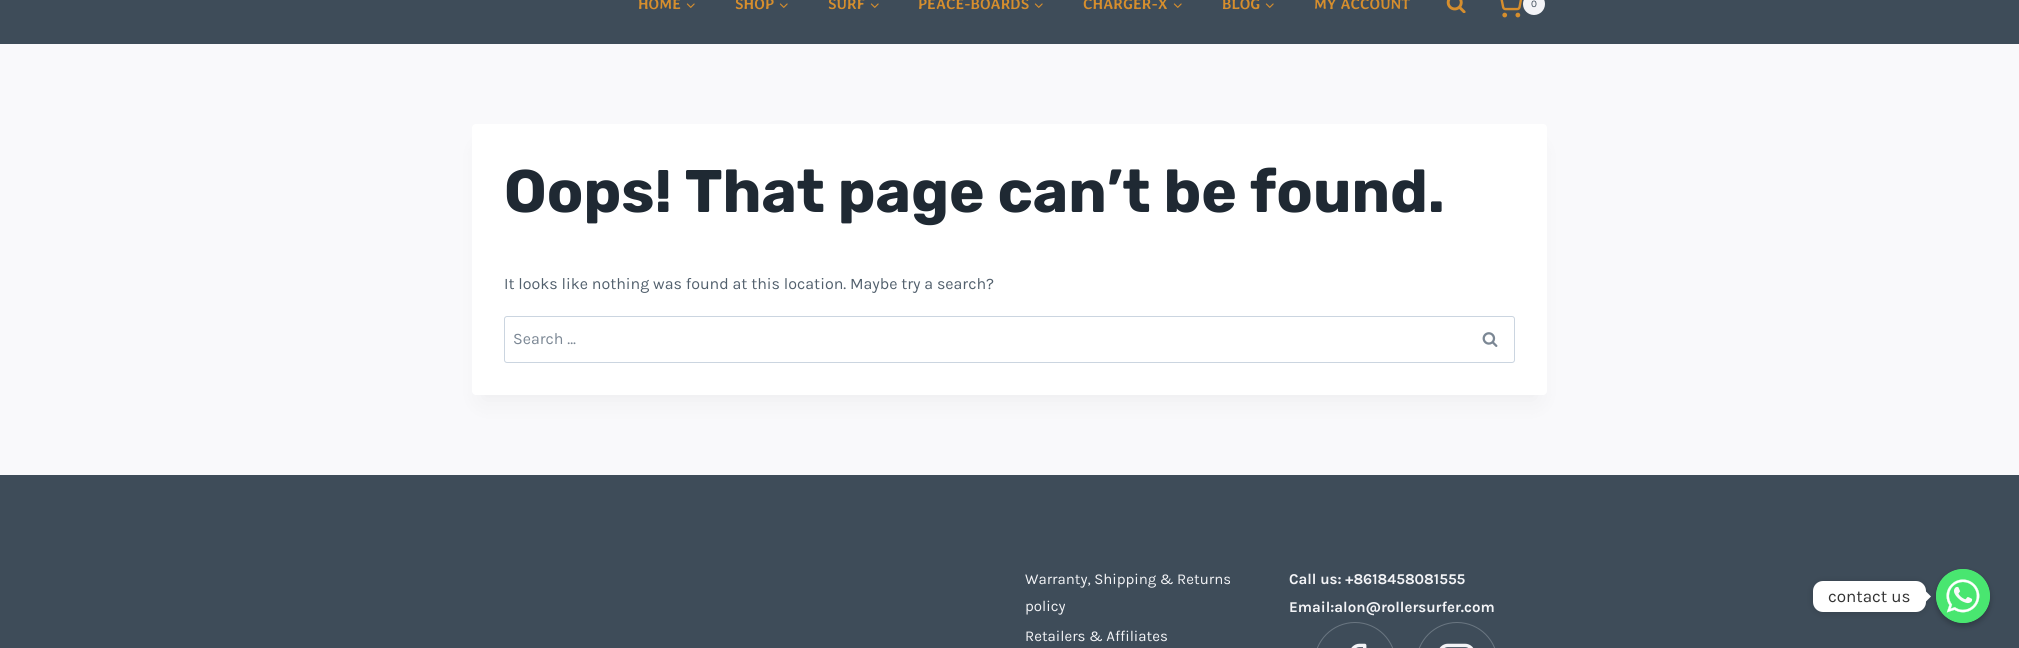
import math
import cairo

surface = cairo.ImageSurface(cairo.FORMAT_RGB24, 2019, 648)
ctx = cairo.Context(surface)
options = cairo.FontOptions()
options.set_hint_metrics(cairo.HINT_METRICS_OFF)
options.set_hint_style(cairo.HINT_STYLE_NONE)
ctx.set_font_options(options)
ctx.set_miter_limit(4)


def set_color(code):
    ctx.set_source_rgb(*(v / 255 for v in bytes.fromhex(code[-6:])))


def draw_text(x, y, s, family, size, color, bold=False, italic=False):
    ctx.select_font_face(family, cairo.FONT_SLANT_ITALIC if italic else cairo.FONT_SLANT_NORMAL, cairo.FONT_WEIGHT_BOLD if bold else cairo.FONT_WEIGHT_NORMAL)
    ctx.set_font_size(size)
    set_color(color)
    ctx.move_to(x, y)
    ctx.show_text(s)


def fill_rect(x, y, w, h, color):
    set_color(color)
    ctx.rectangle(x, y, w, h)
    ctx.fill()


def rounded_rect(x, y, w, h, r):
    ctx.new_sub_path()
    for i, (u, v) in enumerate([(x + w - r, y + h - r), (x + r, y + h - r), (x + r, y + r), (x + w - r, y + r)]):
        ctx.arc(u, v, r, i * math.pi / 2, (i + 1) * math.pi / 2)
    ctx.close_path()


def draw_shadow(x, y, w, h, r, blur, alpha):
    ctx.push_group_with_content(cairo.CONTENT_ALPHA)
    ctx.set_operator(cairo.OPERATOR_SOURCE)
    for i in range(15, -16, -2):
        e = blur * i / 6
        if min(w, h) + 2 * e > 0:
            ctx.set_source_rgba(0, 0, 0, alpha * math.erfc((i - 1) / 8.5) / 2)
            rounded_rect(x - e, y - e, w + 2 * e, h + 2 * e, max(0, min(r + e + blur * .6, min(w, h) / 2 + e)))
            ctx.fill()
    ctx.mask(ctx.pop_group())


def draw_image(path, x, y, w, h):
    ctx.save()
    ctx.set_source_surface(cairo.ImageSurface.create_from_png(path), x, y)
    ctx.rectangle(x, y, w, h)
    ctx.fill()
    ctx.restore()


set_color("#f9f9fb")
ctx.paint()
fill_rect(0, 0, 2019, 44, "#3e4c59")
draw_text(638, 9, "HOME", "Averia Libre", 15, "#d68e2d", bold=True)
draw_image("assets/img1.png", 686, 3, 9, 5)
draw_text(735, 9, "SHOP", "Averia Libre", 15, "#d68e2d", bold=True)
draw_image("assets/img1.png", 779, 3, 9, 5)
draw_text(828, 9, "SURF", "Averia Libre", 15, "#d68e2d", bold=True)
draw_image("assets/img1.png", 870, 3, 9, 5)
draw_text(918, 9, "PEACE-BOARDS", "Averia Libre", 15, "#d68e2d", bold=True)
draw_image("assets/img1.png", 1034, 3, 9, 5)
draw_text(1083, 9, "CHARGER-X", "Averia Libre", 15, "#d68e2d", bold=True)
draw_image("assets/img1.png", 1173, 3, 9, 5)
draw_text(1222, 9, "BLOG", "Averia Libre", 15, "#d68e2d", bold=True)
draw_image("assets/img1.png", 1265, 3, 9, 5)
draw_text(1314, 9, "MY ACCOUNT", "Averia Libre", 15, "#d68e2d", bold=True)
draw_image("assets/img2.png", 1446, 0, 20, 13)
draw_image("assets/img3.png", 1500, 0, 22, 18)
set_color("#f3f4f7")
ctx.arc(1534, 4, 11, 0, 2 * math.pi)
ctx.fill()
draw_text(1531, 7, "0", "Karla", 10, "#3e4c59")
set_color("#000000")
draw_shadow(482, 149, 1055, 251, 0, 12.5, 0.05)
set_color("#ffffff")
rounded_rect(472, 124, 1075, 271, 4)
ctx.fill()
draw_text(504, 212, "Oops! That page can’t be found.", "Rubik", 60, "#1f2933", bold=True)
draw_text(504, 289, "It looks like nothing was found at this location. Maybe try a search?", "Karla", 16, "#52606d")
rounded_rect(504.5, 316.5, 1010, 46, 2.5)
set_color("#cbd5e0")
ctx.set_line_width(1)
ctx.stroke()
draw_text(513, 344, "Search …", "Karla", 16, "#7b8794")
draw_image("assets/img4.png", 1482, 332, 16, 15)
fill_rect(0, 475, 2019, 173, "#3e4c59")
draw_text(1025, 584, "Warranty, Shipping & Returns", "Karla", 15, "#f3f4f7")
draw_text(1025, 611, "policy", "Karla", 15, "#f3f4f7")
draw_text(1025, 641, "Retailers & Affiliates", "Karla", 15, "#f3f4f7")
draw_text(1289, 584, "Call us: +8618458081555", "Karla", 15, "#f3f4f7", bold=True)
draw_text(1289, 612, "Email:alon@rollersurfer.com", "Karla", 15, "#f3f4f7", bold=True)
rounded_rect(1314.5, 622.5, 81, 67, 40.5)
set_color("#6a7681")
ctx.stroke()
draw_image("assets/img5.png", 1351, 643, 16, 5)
rounded_rect(1416.5, 622.5, 81, 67, 40.5)
ctx.stroke()
draw_image("assets/img6.png", 1439, 643, 35, 5)
set_color("#000000")
draw_shadow(1936, 572, 54, 54, 27, 3, 0.25)
set_color("#49e670")
ctx.arc(1963, 596, 27, 0, 2 * math.pi)
ctx.fill()
draw_image("assets/img7.png", 1936, 569, 54, 54)
set_color("#000000")
draw_shadow(1813, 582, 113, 31, 10, 4, 0.15)
set_color("#ffffff")
rounded_rect(1813, 581, 113, 31, 10)
ctx.fill()
draw_text(1828, 602, "contact us", "Karla", 17, "#333333")
set_color("#ffffff")
ctx.new_path()
ctx.move_to(1926, 601.5)
ctx.line_to(1926, 591.5)
ctx.line_to(1931, 596.5)
ctx.close_path()
ctx.fill()
surface.write_to_png("output.png")
